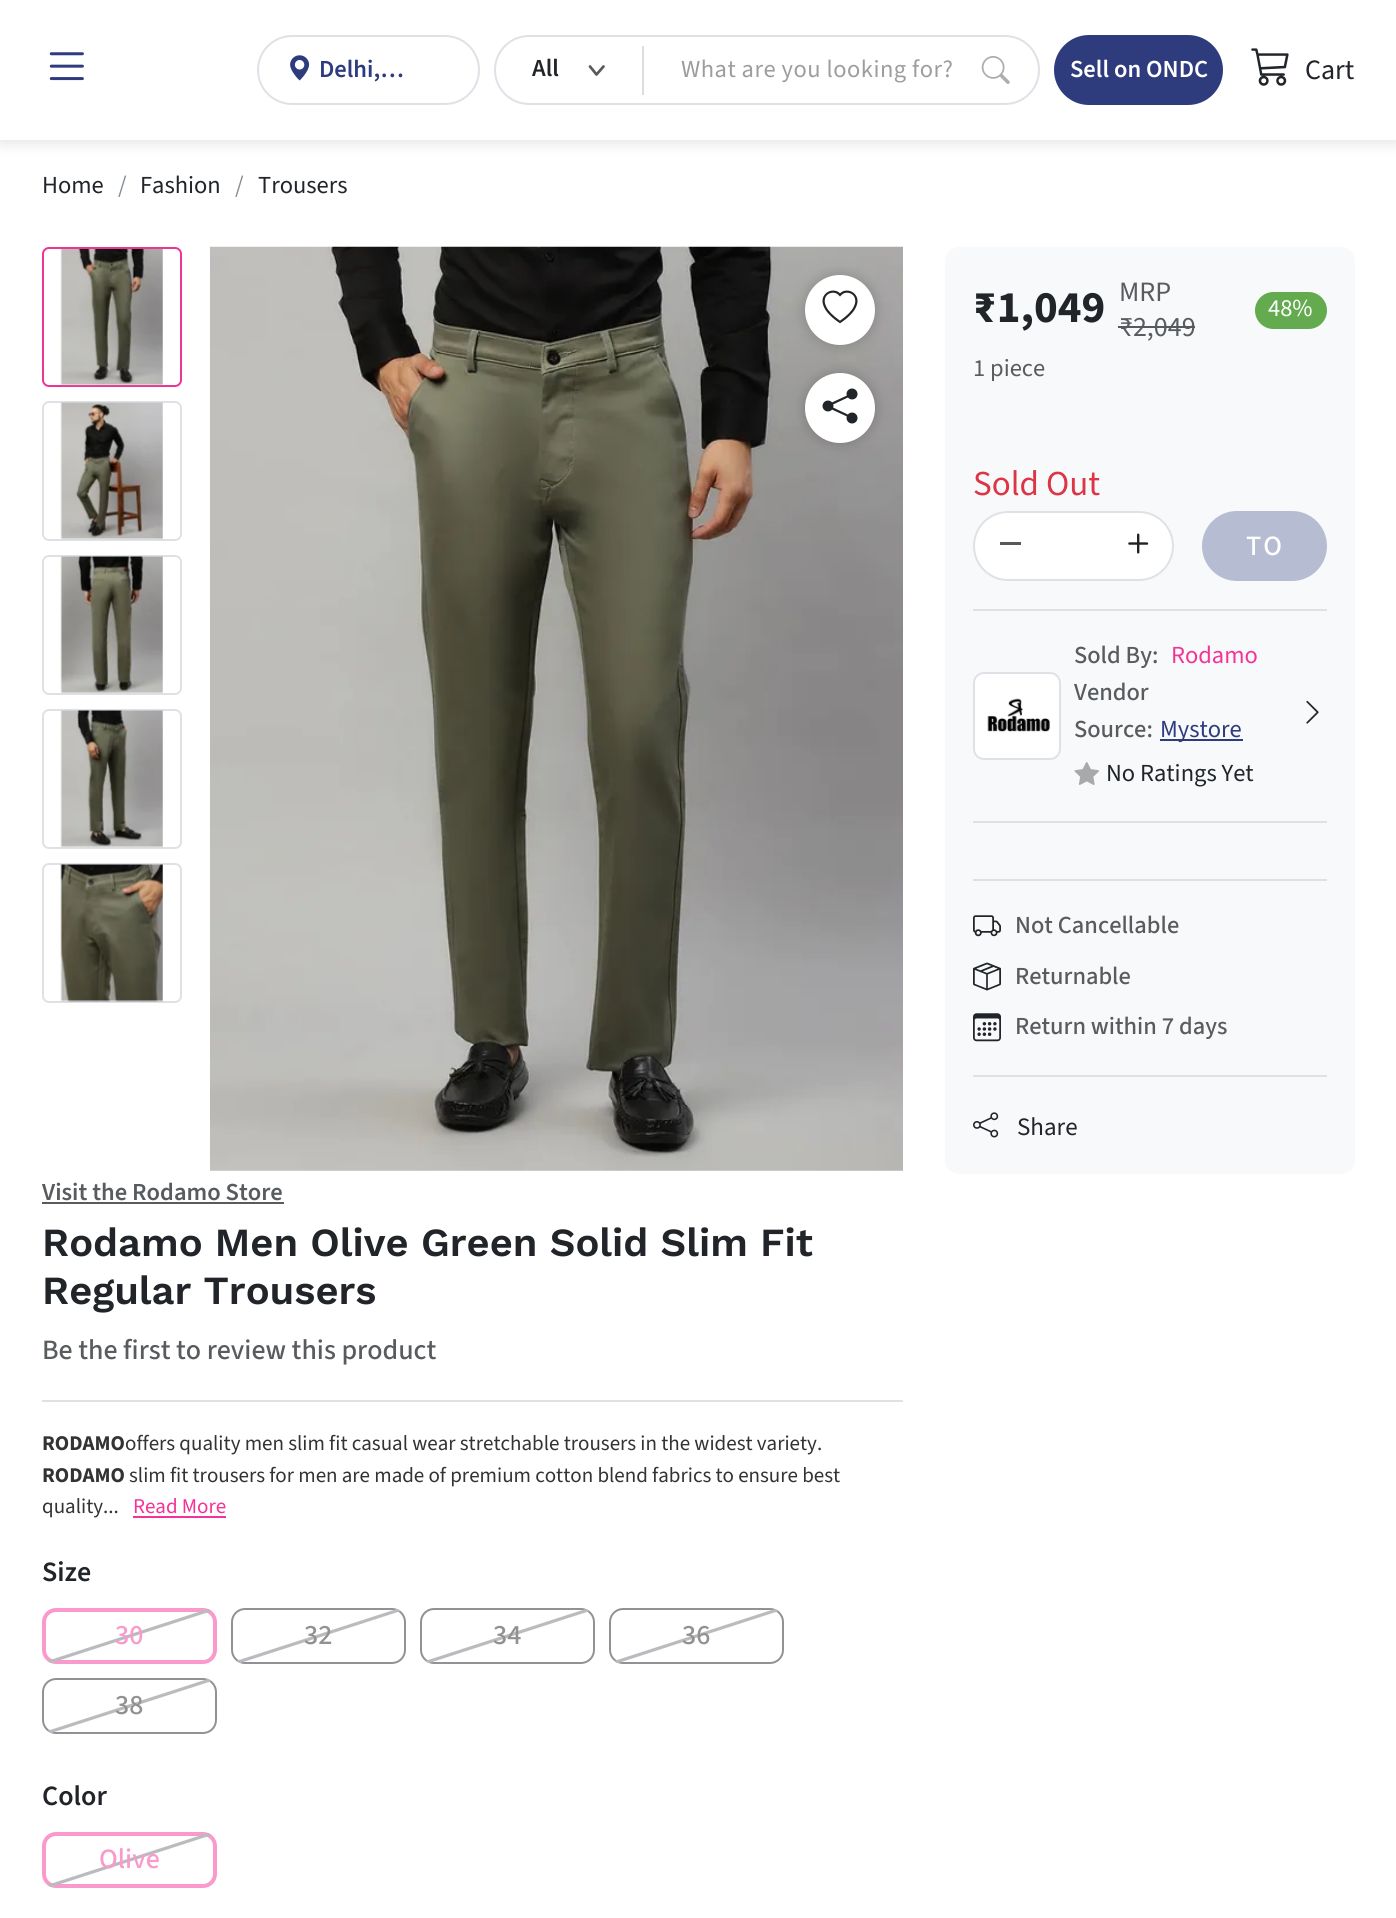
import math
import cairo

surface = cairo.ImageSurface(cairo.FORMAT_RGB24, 1396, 1918)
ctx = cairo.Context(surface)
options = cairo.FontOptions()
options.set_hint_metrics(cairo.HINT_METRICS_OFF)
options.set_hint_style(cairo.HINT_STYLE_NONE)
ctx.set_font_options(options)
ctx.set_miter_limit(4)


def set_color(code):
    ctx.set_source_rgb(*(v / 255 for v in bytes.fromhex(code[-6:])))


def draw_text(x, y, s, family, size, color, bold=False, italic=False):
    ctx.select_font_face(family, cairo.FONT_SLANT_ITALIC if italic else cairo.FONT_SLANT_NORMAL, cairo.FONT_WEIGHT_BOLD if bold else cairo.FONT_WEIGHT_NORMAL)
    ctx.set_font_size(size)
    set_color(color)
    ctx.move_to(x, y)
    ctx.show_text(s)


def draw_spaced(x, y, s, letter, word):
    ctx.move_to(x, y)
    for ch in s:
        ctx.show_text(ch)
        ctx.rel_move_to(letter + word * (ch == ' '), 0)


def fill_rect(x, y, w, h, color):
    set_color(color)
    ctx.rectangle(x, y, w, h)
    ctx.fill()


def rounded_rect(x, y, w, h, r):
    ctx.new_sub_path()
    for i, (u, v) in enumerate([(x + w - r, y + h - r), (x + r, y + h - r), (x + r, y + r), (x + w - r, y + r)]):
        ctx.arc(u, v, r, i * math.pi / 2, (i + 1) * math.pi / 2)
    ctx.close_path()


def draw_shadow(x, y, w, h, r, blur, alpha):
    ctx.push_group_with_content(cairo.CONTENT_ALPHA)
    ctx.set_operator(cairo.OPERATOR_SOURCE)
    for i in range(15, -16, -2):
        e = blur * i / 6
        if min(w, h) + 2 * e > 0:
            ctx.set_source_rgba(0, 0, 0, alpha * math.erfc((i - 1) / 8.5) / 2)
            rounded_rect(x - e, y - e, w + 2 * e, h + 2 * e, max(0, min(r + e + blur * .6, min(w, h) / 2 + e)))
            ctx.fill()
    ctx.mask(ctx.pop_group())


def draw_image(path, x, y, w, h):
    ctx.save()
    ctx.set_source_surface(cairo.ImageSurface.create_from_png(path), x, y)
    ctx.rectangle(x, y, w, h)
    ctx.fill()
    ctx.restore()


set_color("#ffffff")
ctx.paint()
set_color("#000000")
draw_shadow(0, 0, 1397, 140, 0, 9, 0.15)
fill_rect(0, 0, 1396, 140, "#ffffff")
draw_image("assets/img1.png", 49, 52, 35, 29)
rounded_rect(258, 36, 221, 68, 34)
set_color("#dee2e6")
ctx.stroke()
draw_image("assets/img2.png", 290, 55, 20, 26)
draw_text(319, 77, "Delhi,…", "Source Sans 3 SemiBold", 24.5, "#2e3c7e")
rounded_rect(495, 36, 544, 68, 34)
set_color("#dee2e6")
ctx.stroke()
fill_rect(642, 46, 2, 49, "#dddddd")
draw_text(532, 76, "All", "Source Sans 3 SemiBold", 24.5, "#212529")
ctx.new_path()
ctx.move_to(590, 66.5)
ctx.line_to(596.5, 74.5)
ctx.line_to(603.5, 66.5)
set_color("#595959")
ctx.set_line_width(2.7)
ctx.set_line_cap(cairo.LINE_CAP_ROUND)
ctx.set_line_join(cairo.LINE_JOIN_ROUND)
ctx.stroke()
ctx.select_font_face("Source Sans 3")
set_color("#9d9d9d")
draw_spaced(681, 77, "What are you looking for?", 0.5, 0)
draw_image("assets/img3.png", 981, 56, 29, 28)
set_color("#2e3c7e")
rounded_rect(1055, 36, 167, 68, 34)
ctx.fill_preserve()
ctx.set_line_width(2)
ctx.set_line_cap(cairo.LINE_CAP_BUTT)
ctx.set_line_join(cairo.LINE_JOIN_MITER)
ctx.stroke()
draw_text(1070, 77, "Sell on ONDC", "Source Sans 3 SemiBold", 24.5, "#ffffff")
draw_image("assets/img4.png", 1251, 48, 38, 38)
draw_text(1305, 79, "Cart", "Source Sans 3", 28, "#212529")
draw_text(42, 193, "Home", "Source Sans 3", 24.5, "#212529")
draw_text(118, 193, "/", "Source Sans 3", 24.5, "#868e96")
draw_text(140, 193, "Fashion", "Source Sans 3", 24.5, "#212529")
draw_text(235, 193, "/", "Source Sans 3", 24.5, "#868e96")
draw_text(258, 193, "Trousers", "Source Sans 3", 24.5, "#212529")
set_color("#f8f9fa")
rounded_rect(945, 247, 410, 927, 14)
ctx.fill()
draw_text(973, 322, "₹1,049", "Source Sans 3", 45, "#212529", bold=True)
draw_text(1119, 301, "MRP", "Source Sans 3", 28, "#595c5f")
draw_text(1119, 336, "₹2,049", "Source Sans 3", 28, "#595c5f")
fill_rect(1118, 326, 77, 2, "#575a5d")
set_color("#64aa4f")
rounded_rect(1255, 292, 72, 37, 18.5)
ctx.fill()
draw_text(1268, 316, "48%", "Source Sans 3", 24.5, "#ffffff")
draw_text(973, 376, "1 piece", "Source Sans 3", 24.5, "#595c5f")
fill_rect(973, 609, 354, 2, "#dee2e6")
draw_text(973, 495, "Sold Out", "Source Sans 3", 35, "#dc3545")
set_color("#ffffff")
rounded_rect(974, 512, 199, 68, 34)
ctx.fill_preserve()
set_color("#dee2e6")
ctx.stroke()
fill_rect(1000, 542, 21, 3, "#595959")
draw_image("assets/img5.png", 1128, 533, 21, 21)
set_color("#b6bcd2")
rounded_rect(1203, 512, 123, 68, 34)
ctx.fill_preserve()
ctx.stroke()
ctx.select_font_face("Source Sans 3 Medium")
ctx.set_font_size(28)
set_color("#ffffff")
draw_spaced(1246, 555, "TO", 2, 0)
fill_rect(973, 821, 354, 2, "#dee2e6")
set_color("#ffffff")
rounded_rect(974, 673, 86, 86, 10)
ctx.fill_preserve()
set_color("#dee2e6")
ctx.stroke()
draw_image("assets/img6.png", 987, 698, 64, 35)
draw_text(1074, 663, "Sold By:", "Source Sans 3 Medium", 24.5, "#595c5f")
draw_text(1171, 663, "Rodamo", "Source Sans 3", 24.5, "#f43397")
draw_text(1074, 700, "Vendor", "Source Sans 3 Medium", 24.5, "#595c5f")
draw_text(1074, 737, "Source:", "Source Sans 3 Medium", 24.5, "#595c5f")
fill_rect(1160, 739, 83, 2, "#2e3c7e")
draw_text(1160, 737, "Mystore", "Source Sans 3", 24.5, "#2e3c7e")
draw_image("assets/img7.png", 1074, 762, 25, 23)
draw_text(1106, 781, "No Ratings Yet", "Source Sans 3", 24.5, "#212529")
draw_image("assets/img8.png", 1306, 700, 13, 24)
fill_rect(973, 879, 354, 2, "#dee2e6")
fill_rect(973, 1075, 354, 2, "#dee2e6")
draw_image("assets/img9.png", 973, 915, 28, 22)
draw_text(1015, 933, "Not Cancellable", "Source Sans 3 Medium", 24.5, "#595c5f")
draw_image("assets/img10.png", 973, 962, 28, 29)
draw_text(1015, 984, "Returnable", "Source Sans 3 Medium", 24.5, "#595c5f")
draw_image("assets/img11.png", 973, 1013, 28, 29)
draw_text(1015, 1034, "Return within 7 days", "Source Sans 3 Medium", 24.5, "#595c5f")
draw_image("assets/img12.png", 973, 1112, 26, 26)
draw_text(1017, 1135, "Share", "Source Sans 3", 25, "#212529")
rounded_rect(43, 248, 138, 138, 6)
set_color("#ed3595")
ctx.stroke()
draw_image("assets/img13.png", 60, 249, 103, 137)
rounded_rect(43, 402, 138, 138, 6)
set_color("#dee2e6")
ctx.stroke()
draw_image("assets/img14.png", 60, 402, 103, 138)
rounded_rect(43, 556, 138, 138, 6)
ctx.stroke()
draw_image("assets/img15.png", 60, 556, 103, 138)
rounded_rect(43, 710, 138, 138, 6)
ctx.stroke()
draw_image("assets/img16.png", 60, 710, 103, 138)
rounded_rect(43, 864, 138, 138, 6)
ctx.stroke()
draw_image("assets/img17.png", 60, 864, 103, 138)
draw_image("assets/img18.png", 210, 246, 693, 925)
set_color("#000000")
draw_shadow(805, 275, 70, 70, 35, 7, 0.2)
set_color("#ffffff")
ctx.arc(840, 310, 35, 0, 2 * math.pi)
ctx.fill()
draw_image("assets/img19.png", 822, 290, 36, 34)
set_color("#000000")
draw_shadow(805, 373, 70, 70, 35, 7, 0.2)
set_color("#ffffff")
ctx.arc(840, 408, 35, 0, 2 * math.pi)
ctx.fill()
draw_image("assets/img20.png", 822, 388, 36, 36)
fill_rect(42, 1400, 861, 2, "#dee2e6")
draw_text(42, 1200, "Visit the Rodamo Store", "Source Sans 3 SemiBold", 24.5, "#595c5f")
fill_rect(42, 1202, 242, 2, "#595c5f")
draw_text(42, 1256, "Rodamo Men Olive Green Solid Slim Fit", "Work Sans SemiBold", 39.9, "#212529")
draw_text(42, 1304, "Regular Trousers", "Work Sans SemiBold", 39.9, "#212529")
draw_text(42, 1359, "Be the first to review this product", "Source Sans 3 Medium", 28, "#595c5f")
draw_text(42, 1450, "RODAMO", "Source Sans 3", 21, "#333333", bold=True)
draw_text(125, 1450, "offers quality men slim fit casual wear stretchable trousers in the widest variety.", "Source Sans 3", 21, "#333333")
draw_text(42, 1482, "RODAMO", "Source Sans 3", 21, "#333333", bold=True)
draw_text(129, 1482, "slim fit trousers for men are made of premium cotton blend fabrics to ensure best", "Source Sans 3", 21, "#333333")
draw_text(42, 1513, "quality...", "Source Sans 3", 21, "#333333")
draw_text(133, 1513, "Read More", "Source Sans 3", 21, "#f43397")
fill_rect(133, 1516, 93, 2, "#f43397")
draw_text(42, 1581, "Size", "Source Sans 3 SemiBold", 28, "#212529")
rounded_rect(44, 1610, 171, 52, 12)
set_color("#fa99cb")
ctx.set_line_width(4)
ctx.stroke()
gradient = cairo.LinearGradient(113, 1585, 146, 1687)
gradient.add_color_stop_rgba(0.48, 0.729, 0.733, 0.745, 0)
gradient.add_color_stop_rgba(0.49, 0.729, 0.733, 0.745, 1)
gradient.add_color_stop_rgba(0.51, 0.729, 0.733, 0.745, 1)
gradient.add_color_stop_rgba(0.52, 0.729, 0.733, 0.745, 0)
ctx.set_source(gradient)
rounded_rect(42, 1608, 175, 56, 14)
ctx.fill()
draw_text(115, 1644, "30", "Source Sans 3 Medium", 28, "#fa99cb")
rounded_rect(232, 1609, 173, 54, 13)
set_color("#909294")
ctx.set_line_width(2)
ctx.stroke()
gradient = cairo.LinearGradient(302, 1585, 335, 1687)
gradient.add_color_stop_rgba(0.48, 0.729, 0.733, 0.745, 0)
gradient.add_color_stop_rgba(0.49, 0.729, 0.733, 0.745, 1)
gradient.add_color_stop_rgba(0.51, 0.729, 0.733, 0.745, 1)
gradient.add_color_stop_rgba(0.52, 0.729, 0.733, 0.745, 0)
ctx.set_source(gradient)
rounded_rect(231, 1608, 175, 56, 14)
ctx.fill()
draw_text(304, 1644, "32", "Source Sans 3 Medium", 28, "#919191")
rounded_rect(421, 1609, 173, 54, 13)
set_color("#909294")
ctx.stroke()
gradient = cairo.LinearGradient(491, 1585, 524, 1687)
gradient.add_color_stop_rgba(0.48, 0.729, 0.733, 0.745, 0)
gradient.add_color_stop_rgba(0.49, 0.729, 0.733, 0.745, 1)
gradient.add_color_stop_rgba(0.51, 0.729, 0.733, 0.745, 1)
gradient.add_color_stop_rgba(0.52, 0.729, 0.733, 0.745, 0)
ctx.set_source(gradient)
rounded_rect(420, 1608, 175, 56, 14)
ctx.fill()
draw_text(493, 1644, "34", "Source Sans 3 Medium", 28, "#919191")
rounded_rect(610, 1609, 173, 54, 13)
set_color("#909294")
ctx.stroke()
gradient = cairo.LinearGradient(680, 1585, 713, 1687)
gradient.add_color_stop_rgba(0.48, 0.729, 0.733, 0.745, 0)
gradient.add_color_stop_rgba(0.49, 0.729, 0.733, 0.745, 1)
gradient.add_color_stop_rgba(0.51, 0.729, 0.733, 0.745, 1)
gradient.add_color_stop_rgba(0.52, 0.729, 0.733, 0.745, 0)
ctx.set_source(gradient)
rounded_rect(609, 1608, 175, 56, 14)
ctx.fill()
draw_text(682, 1644, "36", "Source Sans 3 Medium", 28, "#919191")
rounded_rect(43, 1679, 173, 54, 13)
set_color("#909294")
ctx.stroke()
gradient = cairo.LinearGradient(113, 1655, 146, 1757)
gradient.add_color_stop_rgba(0.48, 0.729, 0.733, 0.745, 0)
gradient.add_color_stop_rgba(0.49, 0.729, 0.733, 0.745, 1)
gradient.add_color_stop_rgba(0.51, 0.729, 0.733, 0.745, 1)
gradient.add_color_stop_rgba(0.52, 0.729, 0.733, 0.745, 0)
ctx.set_source(gradient)
rounded_rect(42, 1678, 175, 56, 14)
ctx.fill()
draw_text(115, 1714, "38", "Source Sans 3 Medium", 28, "#919191")
draw_text(42, 1805, "Color", "Source Sans 3 SemiBold", 28, "#212529")
rounded_rect(44, 1834, 171, 52, 12)
set_color("#fa99cb")
ctx.set_line_width(4)
ctx.stroke()
gradient = cairo.LinearGradient(113, 1809, 146, 1911)
gradient.add_color_stop_rgba(0.48, 0.729, 0.733, 0.745, 0)
gradient.add_color_stop_rgba(0.49, 0.729, 0.733, 0.745, 1)
gradient.add_color_stop_rgba(0.51, 0.729, 0.733, 0.745, 1)
gradient.add_color_stop_rgba(0.52, 0.729, 0.733, 0.745, 0)
ctx.set_source(gradient)
rounded_rect(42, 1832, 175, 56, 14)
ctx.fill()
draw_text(99, 1868, "Olive", "Source Sans 3 Medium", 28, "#fa99cb")
surface.write_to_png("output.png")
